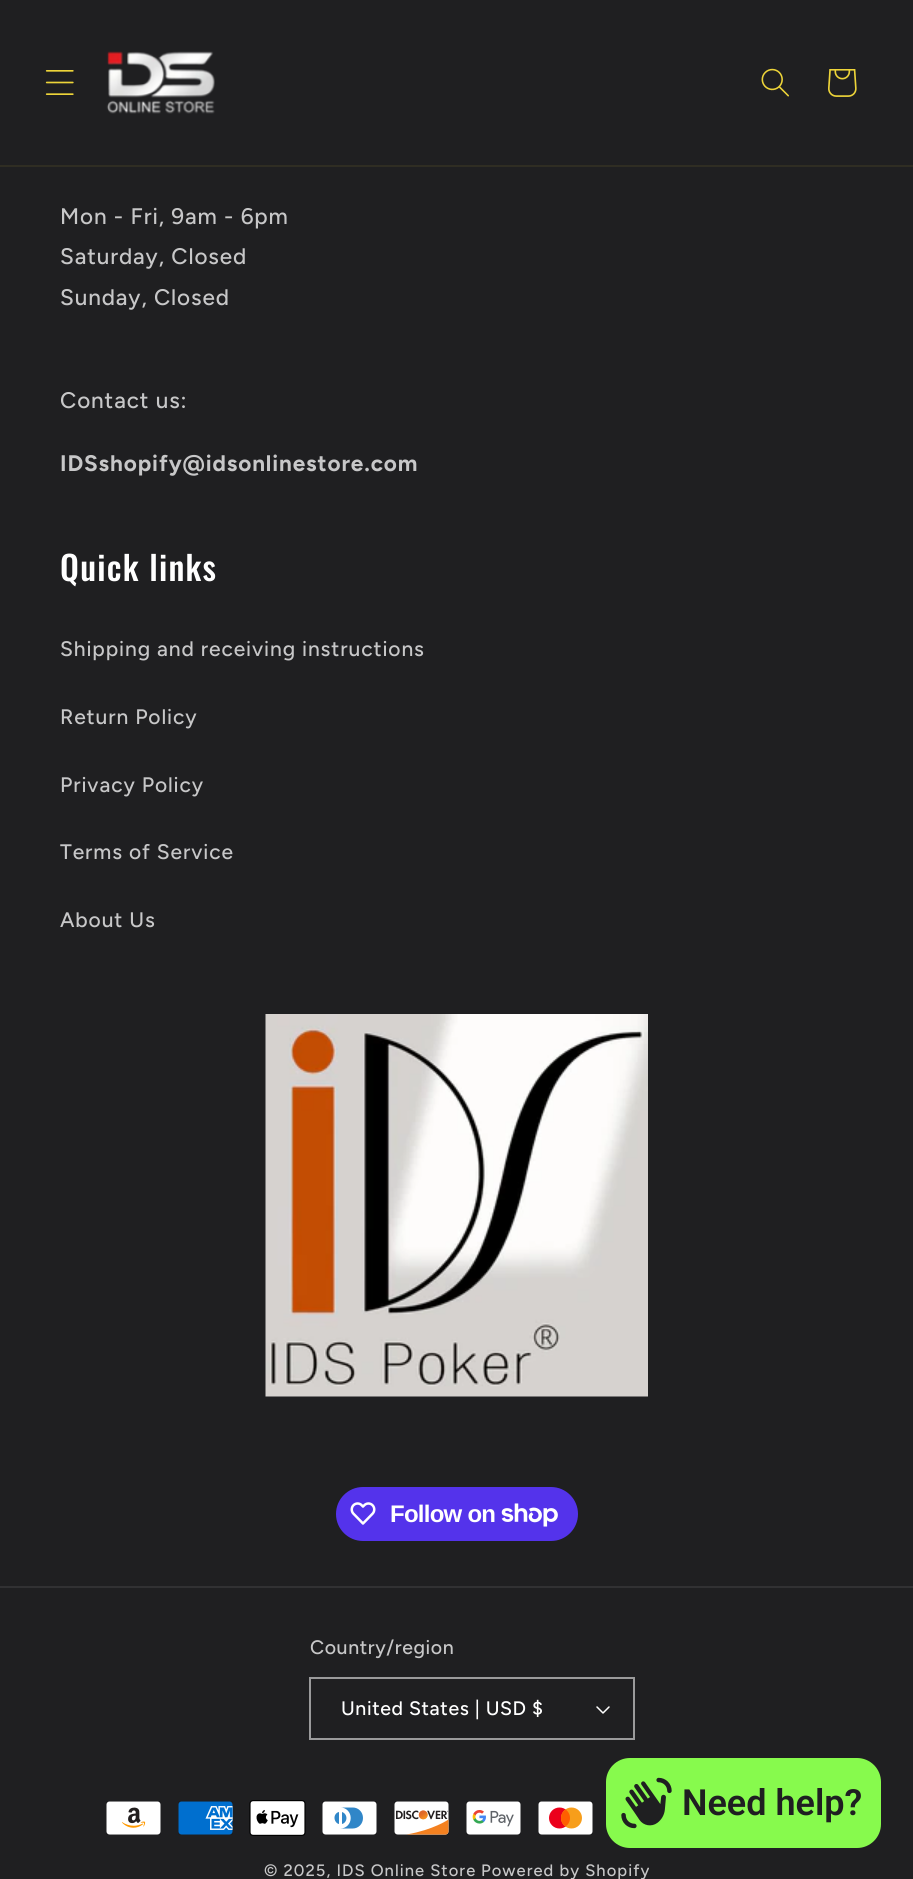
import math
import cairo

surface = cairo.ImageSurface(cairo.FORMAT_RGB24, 913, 1879)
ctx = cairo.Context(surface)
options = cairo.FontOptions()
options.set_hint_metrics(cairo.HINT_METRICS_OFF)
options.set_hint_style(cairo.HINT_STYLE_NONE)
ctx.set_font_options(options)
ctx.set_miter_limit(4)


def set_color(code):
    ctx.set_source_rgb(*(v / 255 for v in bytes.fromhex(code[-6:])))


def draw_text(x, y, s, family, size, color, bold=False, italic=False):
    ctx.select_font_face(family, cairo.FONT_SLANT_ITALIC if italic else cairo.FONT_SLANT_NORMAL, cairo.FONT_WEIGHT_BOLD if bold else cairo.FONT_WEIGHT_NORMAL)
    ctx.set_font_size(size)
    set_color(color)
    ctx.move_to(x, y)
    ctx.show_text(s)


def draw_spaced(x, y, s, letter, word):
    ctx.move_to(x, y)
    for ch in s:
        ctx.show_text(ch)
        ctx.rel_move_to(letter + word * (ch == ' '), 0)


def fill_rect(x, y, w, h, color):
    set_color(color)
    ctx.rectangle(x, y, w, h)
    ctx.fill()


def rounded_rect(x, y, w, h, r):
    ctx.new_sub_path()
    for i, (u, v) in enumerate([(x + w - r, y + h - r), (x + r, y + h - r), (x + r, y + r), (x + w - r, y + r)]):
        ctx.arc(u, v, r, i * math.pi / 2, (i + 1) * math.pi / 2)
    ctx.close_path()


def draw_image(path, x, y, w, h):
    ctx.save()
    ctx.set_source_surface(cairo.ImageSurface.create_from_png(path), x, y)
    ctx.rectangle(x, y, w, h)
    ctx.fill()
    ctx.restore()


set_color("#1f1f21")
ctx.paint()
fill_rect(0, 165, 913, 2, "#2f2d23")
draw_image("assets/img1.png", 45, 70, 29, 25)
draw_image("assets/img2.png", 106, 51, 109, 63)
draw_image("assets/img3.png", 761, 68, 28, 29)
draw_image("assets/img4.png", 828, 69, 29, 28)
ctx.select_font_face("Figtree Medium")
ctx.set_font_size(22.5)
set_color("#c7c7c8")
draw_spaced(60, 224, "Mon - Fri, 9am - 6pm", 0.9, 0)
draw_spaced(60, 264, "Saturday, Closed", 0.9, 0)
draw_spaced(60, 305, "Sunday, Closed", 0.9, 0)
draw_spaced(60, 408, "Contact us:", 0.9, 0)
ctx.select_font_face("Figtree", cairo.FONT_SLANT_NORMAL, cairo.FONT_WEIGHT_BOLD)
draw_spaced(60, 471, "IDSshopify@idsonlinestore.com", 0.9, 0)
ctx.select_font_face("Oswald Medium")
ctx.set_font_size(33.5)
set_color("#ffffff")
draw_spaced(60, 581, "Quick links", 1.25, 0)
ctx.select_font_face("Figtree Medium")
ctx.set_font_size(21)
set_color("#c7c7c8")
draw_spaced(60, 656, "Shipping and receiving instructions", 0.9, 0)
draw_spaced(60, 724, "Return Policy", 0.9, 0)
draw_spaced(60, 792, "Privacy Policy", 0.9, 0)
draw_spaced(60, 859, "Terms of Service", 0.9, 0)
draw_spaced(60, 927, "About Us", 0.9, 0)
draw_image("assets/img5.png", 265, 1014, 383, 383)
set_color("#5433eb")
rounded_rect(336, 1487, 242, 54, 27)
ctx.fill()
draw_image("assets/img6.png", 350, 1502, 26, 23)
ctx.select_font_face("Liberation Sans", cairo.FONT_SLANT_NORMAL, cairo.FONT_WEIGHT_BOLD)
ctx.set_font_size(24)
set_color("#ffffff")
draw_spaced(390, 1522, "Follow on", -0.75, 0)
draw_image("assets/img7.png", 501, 1503, 57, 24)
fill_rect(0, 1586, 913, 2, "#313133")
ctx.select_font_face("Figtree Medium")
ctx.set_font_size(19.5)
set_color("#c7c7c8")
draw_spaced(310, 1654, "Country/region", 0.6, 0)
draw_image("assets/img8.png", 596, 1706, 14, 8)
ctx.rectangle(310, 1678, 324, 61)
set_color("#9a9a9b")
ctx.stroke()
set_color("#ffffff")
draw_spaced(341, 1715, "United States | USD $", 0.6, 0)
draw_image("assets/img9.png", 106, 1801, 55, 34)
draw_image("assets/img10.png", 178, 1801, 55, 34)
draw_image("assets/img11.png", 249, 1800, 57, 36)
draw_image("assets/img12.png", 322, 1801, 55, 34)
draw_image("assets/img13.png", 394, 1801, 55, 34)
draw_image("assets/img14.png", 466, 1801, 55, 34)
draw_image("assets/img15.png", 538, 1801, 55, 34)
ctx.set_font_size(16.5)
set_color("#c7c7c8")
draw_spaced(264, 1876, "© 2025, IDS Online Store", 1.05, 0)
draw_spaced(481, 1876, "Powered by Shopify", 1.05, 0)
set_color("#87fa4d")
rounded_rect(606, 1758, 275, 90, 24)
ctx.fill()
draw_image("assets/img16.png", 621, 1777, 51, 52)
draw_text(682, 1815, "Need help?", "Roboto SemiBold", 36, "#1f1f21")
surface.write_to_png("output.png")
